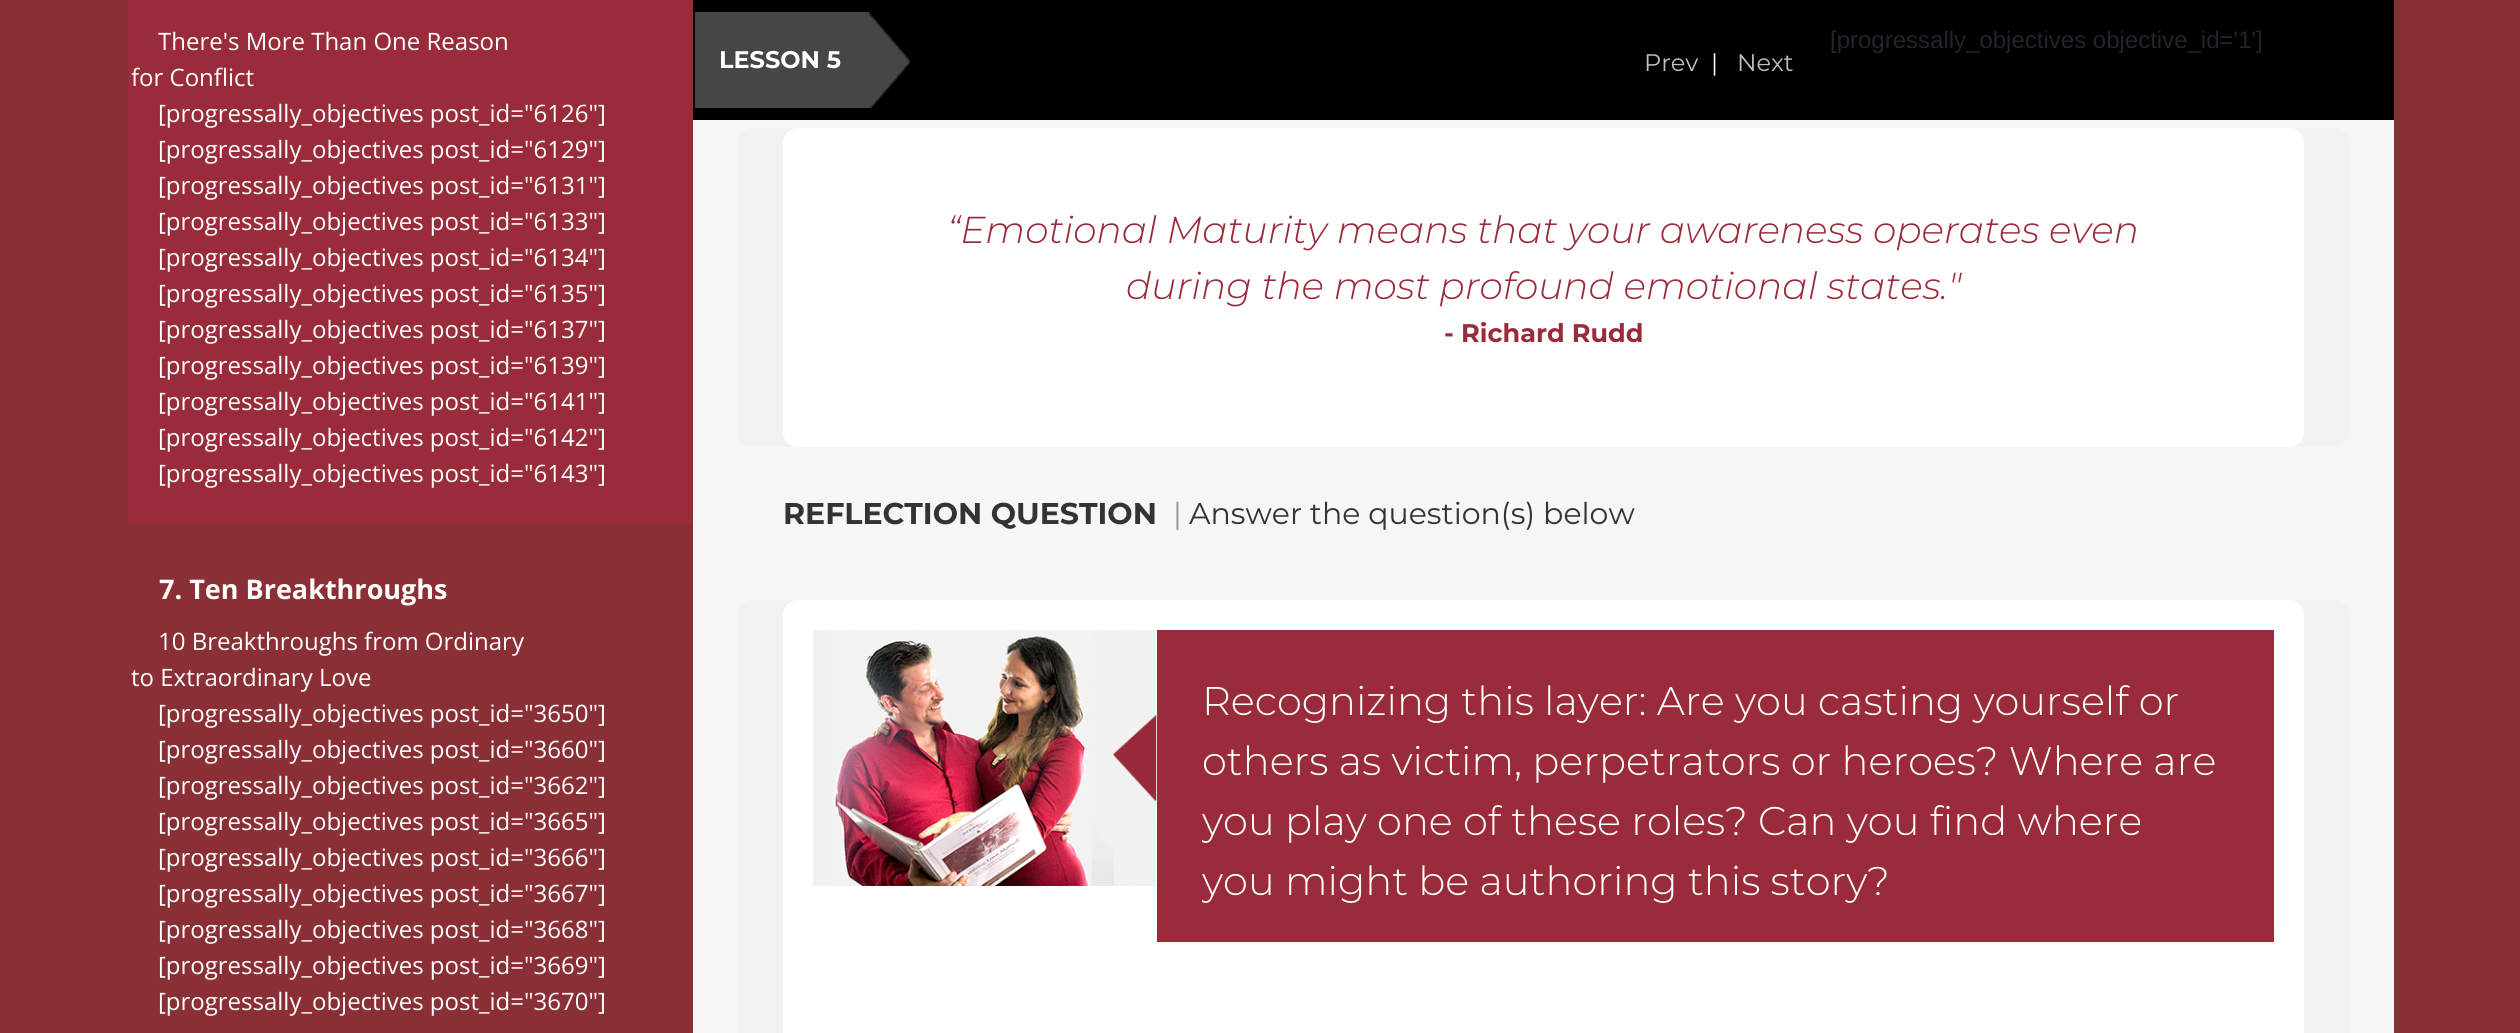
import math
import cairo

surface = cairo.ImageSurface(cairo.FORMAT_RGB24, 2520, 1033)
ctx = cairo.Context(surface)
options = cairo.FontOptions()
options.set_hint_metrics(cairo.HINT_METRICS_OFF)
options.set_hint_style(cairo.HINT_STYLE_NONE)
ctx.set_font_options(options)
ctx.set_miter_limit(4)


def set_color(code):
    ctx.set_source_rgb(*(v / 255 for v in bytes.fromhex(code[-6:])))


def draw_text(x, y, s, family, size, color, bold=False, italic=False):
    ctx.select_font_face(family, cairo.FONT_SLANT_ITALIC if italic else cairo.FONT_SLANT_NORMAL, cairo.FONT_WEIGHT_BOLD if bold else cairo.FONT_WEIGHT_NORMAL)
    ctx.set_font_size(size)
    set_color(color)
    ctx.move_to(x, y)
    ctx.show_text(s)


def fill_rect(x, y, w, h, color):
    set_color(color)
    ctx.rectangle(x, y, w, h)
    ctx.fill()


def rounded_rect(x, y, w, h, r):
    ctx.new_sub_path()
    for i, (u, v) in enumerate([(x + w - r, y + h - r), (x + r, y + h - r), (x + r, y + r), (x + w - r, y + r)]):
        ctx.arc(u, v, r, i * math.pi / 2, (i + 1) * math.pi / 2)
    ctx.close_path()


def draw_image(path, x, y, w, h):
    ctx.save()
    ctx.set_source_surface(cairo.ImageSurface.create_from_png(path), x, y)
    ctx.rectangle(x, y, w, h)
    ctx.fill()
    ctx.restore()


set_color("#8a2f35")
ctx.paint()
fill_rect(128, 0, 564, 20, "#992b3a")
ctx.new_path()
ctx.move_to(128, 20)
ctx.line_to(692, 20)
ctx.line_to(692, 519)
ctx.curve_to(692, 522, 690, 524, 687, 524)
ctx.line_to(133, 524)
ctx.curve_to(130, 524, 128, 522, 128, 519)
ctx.close_path()
ctx.fill()
draw_text(158, 50, "There's More Than One Reason", "Open Sans", 24, "#ffffff")
draw_text(131, 86, "for Conflict", "Open Sans", 24, "#ffffff")
draw_text(158, 122, "[progressally_objectives post_id=\"6126\"]", "Open Sans", 24, "#ffffff")
draw_text(158, 158, "[progressally_objectives post_id=\"6129\"]", "Open Sans", 24, "#ffffff")
draw_text(158, 194, "[progressally_objectives post_id=\"6131\"]", "Open Sans", 24, "#ffffff")
draw_text(158, 230, "[progressally_objectives post_id=\"6133\"]", "Open Sans", 24, "#ffffff")
draw_text(158, 266, "[progressally_objectives post_id=\"6134\"]", "Open Sans", 24, "#ffffff")
draw_text(158, 302, "[progressally_objectives post_id=\"6135\"]", "Open Sans", 24, "#ffffff")
draw_text(158, 338, "[progressally_objectives post_id=\"6137\"]", "Open Sans", 24, "#ffffff")
draw_text(158, 374, "[progressally_objectives post_id=\"6139\"]", "Open Sans", 24, "#ffffff")
draw_text(158, 410, "[progressally_objectives post_id=\"6141\"]", "Open Sans", 24, "#ffffff")
draw_text(158, 446, "[progressally_objectives post_id=\"6142\"]", "Open Sans", 24, "#ffffff")
draw_text(158, 482, "[progressally_objectives post_id=\"6143\"]", "Open Sans", 24, "#ffffff")
draw_text(159, 599, "7. Ten Breakthroughs", "Open Sans", 27, "#ffffff", bold=True)
draw_text(158, 650, "10 Breakthroughs from Ordinary", "Open Sans", 24, "#ffffff")
draw_text(131, 686, "to Extraordinary Love", "Open Sans", 24, "#ffffff")
draw_text(158, 722, "[progressally_objectives post_id=\"3650\"]", "Open Sans", 24, "#ffffff")
draw_text(158, 758, "[progressally_objectives post_id=\"3660\"]", "Open Sans", 24, "#ffffff")
draw_text(158, 794, "[progressally_objectives post_id=\"3662\"]", "Open Sans", 24, "#ffffff")
draw_text(158, 830, "[progressally_objectives post_id=\"3665\"]", "Open Sans", 24, "#ffffff")
draw_text(158, 866, "[progressally_objectives post_id=\"3666\"]", "Open Sans", 24, "#ffffff")
draw_text(158, 902, "[progressally_objectives post_id=\"3667\"]", "Open Sans", 24, "#ffffff")
draw_text(158, 938, "[progressally_objectives post_id=\"3668\"]", "Open Sans", 24, "#ffffff")
draw_text(158, 974, "[progressally_objectives post_id=\"3669\"]", "Open Sans", 24, "#ffffff")
draw_text(158, 1010, "[progressally_objectives post_id=\"3670\"]", "Open Sans", 24, "#ffffff")
fill_rect(693, 0, 1701, 120, "#000000")
draw_text(1830, 48, "[progressally_objectives objective_id='1']", "Liberation Sans", 24, "#212529")
draw_image("assets/img1.png", 695, 12, 215, 96)
draw_text(719, 68, "LESSON 5", "Montserrat", 24, "#ffffff", bold=True)
draw_text(1644, 71, "Prev", "Montserrat", 24, "#bfbfbf")
draw_text(1711, 71, "|", "Montserrat", 24, "#ffffff")
draw_text(1737, 71, "Next", "Montserrat", 24, "#bfbfbf")
fill_rect(693, 120, 1701, 913, "#f6f6f6")
set_color("#f2f2f2")
rounded_rect(738, 128, 1611, 319, 15)
ctx.fill()
set_color("#ffffff")
rounded_rect(783, 128, 1521, 319, 15)
ctx.fill()
draw_text(947, 243, "“Emotional Maturity means that your awareness operates even", "Montserrat Light", 37.5, "#992b3a", italic=True)
draw_text(1126, 299, "during the most profound emotional states.\"", "Montserrat Light", 37.5, "#992b3a", italic=True)
draw_text(1444, 342, "- Richard Rudd", "Montserrat", 25.5, "#992b3a", bold=True)
draw_text(783, 524, "REFLECTION QUESTION", "Montserrat", 30, "#333333", bold=True)
draw_text(1173, 524, "|", "Montserrat", 30, "#999999")
draw_text(1189, 524, "Answer the question(s) below", "Montserrat", 30, "#333333")
set_color("#f2f2f2")
rounded_rect(738, 600, 1611, 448, 15)
ctx.fill()
set_color("#ffffff")
rounded_rect(783, 600, 1521, 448, 15)
ctx.fill()
draw_image("assets/img2.png", 813, 630, 344, 256)
fill_rect(1157, 630, 1117, 312, "#992b3a")
draw_text(1202, 715, "Recognizing this layer: Are you casting yourself or", "Montserrat Light", 40, "#ffffff")
draw_text(1202, 775, "others as victim, perpetrators or heroes? Where are", "Montserrat Light", 40, "#ffffff")
ctx.save()
ctx.rectangle(1202, 672, 1021, 240)
ctx.clip()
draw_text(1202, 835, "you play one of these roles? Can you find where", "Montserrat Light", 40, "#ffffff")
draw_text(1202, 895, "you might be authoring this story?", "Montserrat Light", 40, "#ffffff")
ctx.restore()
surface.write_to_png("output.png")
